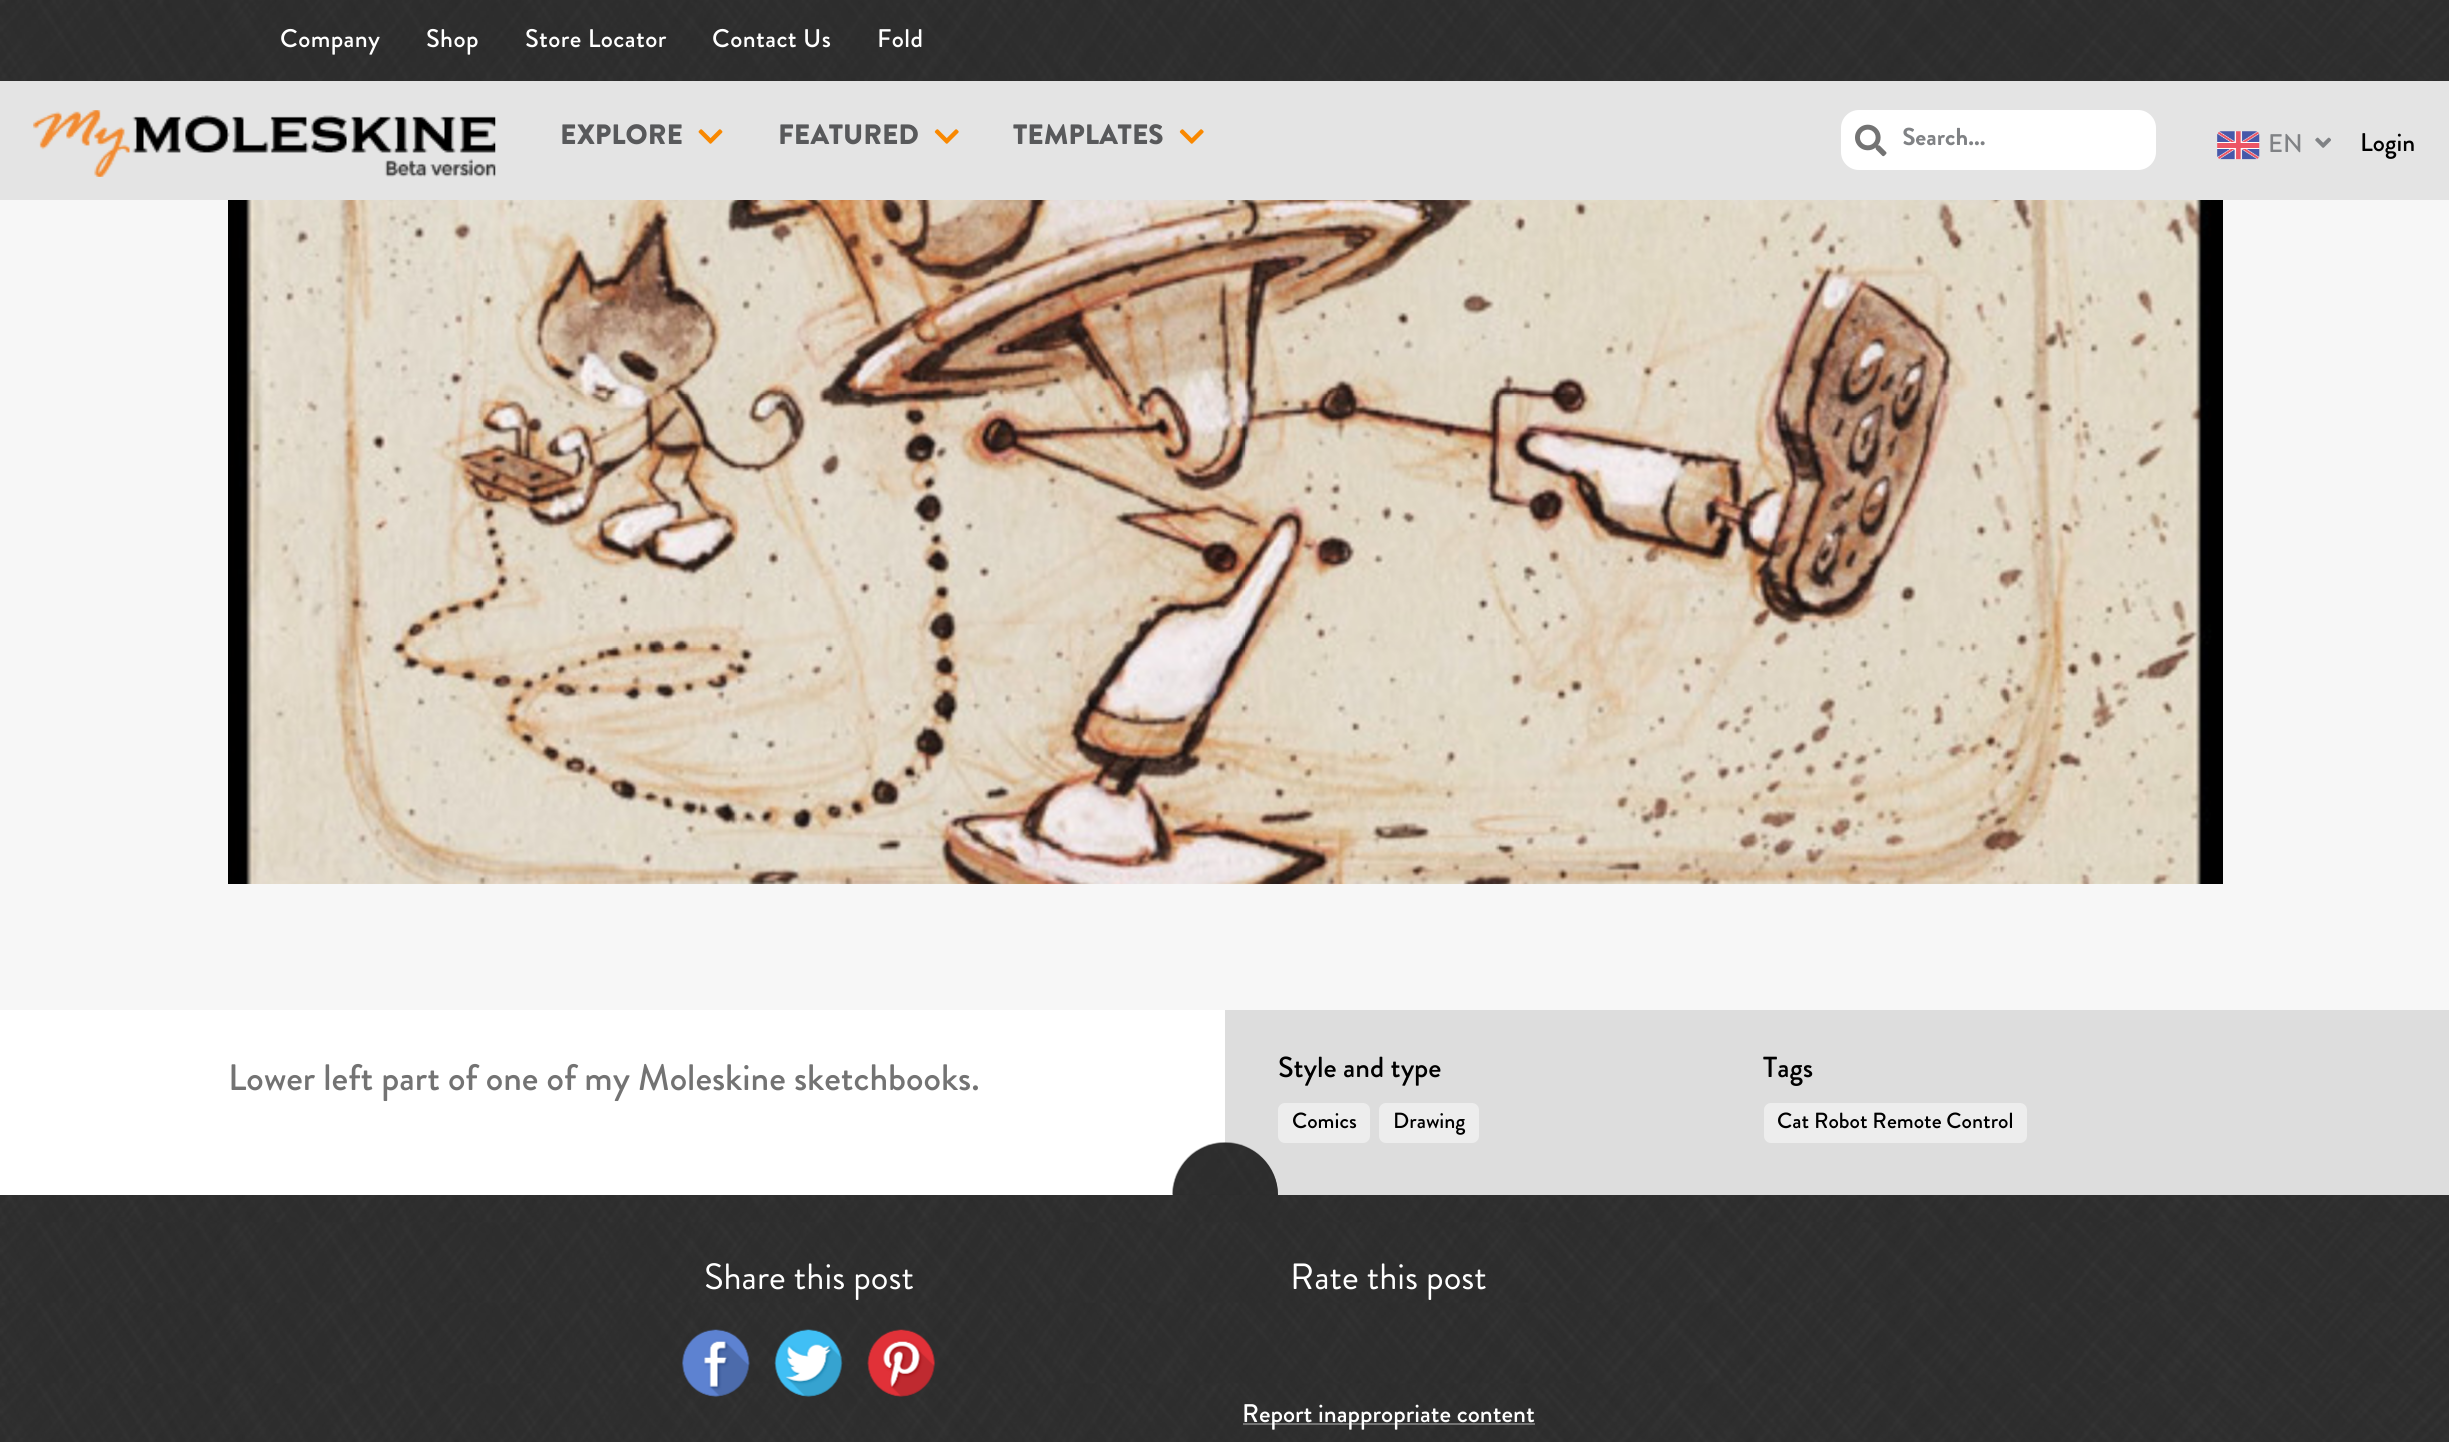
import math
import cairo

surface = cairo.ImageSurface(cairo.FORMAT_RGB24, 2449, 1442)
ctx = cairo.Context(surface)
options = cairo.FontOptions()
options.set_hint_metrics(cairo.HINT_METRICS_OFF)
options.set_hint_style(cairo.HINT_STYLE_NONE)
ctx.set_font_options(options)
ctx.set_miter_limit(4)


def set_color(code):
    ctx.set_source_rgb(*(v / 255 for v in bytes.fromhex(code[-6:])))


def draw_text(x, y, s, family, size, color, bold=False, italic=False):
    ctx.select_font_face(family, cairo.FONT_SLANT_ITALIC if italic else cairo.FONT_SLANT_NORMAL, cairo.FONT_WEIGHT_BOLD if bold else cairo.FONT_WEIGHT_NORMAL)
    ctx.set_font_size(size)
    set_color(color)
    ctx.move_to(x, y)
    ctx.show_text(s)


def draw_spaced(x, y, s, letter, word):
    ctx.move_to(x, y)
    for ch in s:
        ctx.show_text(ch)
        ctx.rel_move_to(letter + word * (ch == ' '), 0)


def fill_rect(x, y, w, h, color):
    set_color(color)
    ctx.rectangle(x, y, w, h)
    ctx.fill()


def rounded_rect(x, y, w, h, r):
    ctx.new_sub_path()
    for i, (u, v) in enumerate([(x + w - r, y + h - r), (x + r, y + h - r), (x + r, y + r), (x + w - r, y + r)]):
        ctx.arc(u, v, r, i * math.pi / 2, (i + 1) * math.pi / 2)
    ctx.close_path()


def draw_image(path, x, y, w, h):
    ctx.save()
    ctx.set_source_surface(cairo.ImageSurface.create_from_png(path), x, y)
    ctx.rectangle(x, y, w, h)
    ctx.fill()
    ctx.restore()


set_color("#ffffff")
ctx.paint()
fill_rect(0, 81, 2449, 119, "#e4e4e4")
draw_image("assets/img1.png", 0, 0, 2449, 81)
ctx.select_font_face("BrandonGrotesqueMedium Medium")
ctx.set_font_size(25.5)
set_color("#ffffff")
draw_spaced(280, 47, "Company", 0.4, 0)
draw_spaced(426, 47, "Shop", 0.4, 0)
draw_spaced(525, 47, "Store Locator", 0.4, 0)
draw_spaced(712, 47, "Contact Us", 0.4, 0)
draw_spaced(877, 47, "Fold", 0.4, 0)
draw_image("assets/img2.png", 33, 110, 463, 67)
draw_text(560, 144, "EXPLORE", "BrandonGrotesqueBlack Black", 28, "#58595b")
draw_image("assets/img3.png", 698, 129, 25, 15)
draw_text(778, 144, "FEATURED", "BrandonGrotesqueBlack Black", 28, "#58595b")
draw_image("assets/img4.png", 934, 129, 25, 15)
draw_text(1013, 144, "TEMPLATES", "BrandonGrotesqueBlack Black", 28, "#58595b")
draw_image("assets/img4.png", 1179, 129, 25, 15)
set_color("#ffffff")
rounded_rect(1841, 110, 315, 60, 18)
ctx.fill()
draw_image("assets/img5.png", 1855, 124, 32, 33)
draw_text(1902, 145, "Search...", "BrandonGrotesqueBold", 24.5, "#808285", bold=True)
draw_image("assets/img6.png", 2217, 131, 43, 29)
draw_text(2268, 152, "EN", "BrandonGrotesqueMedium Medium", 25.5, "#808285")
draw_image("assets/img7.png", 2315, 137, 16, 11)
draw_text(2360, 151, "Login", "BrandonGrotesqueMedium Medium", 25.5, "#000000")
fill_rect(0, 200, 2449, 810, "#f7f7f7")
draw_image("assets/img8.png", 228, 200, 1995, 684)
draw_text(228, 1090, "Lower left part of one of my Moleskine sketchbooks.", "BrandonGrotesqueMedium Medium", 36.75, "#737373")
fill_rect(1225, 1010, 1224, 185, "#dddddd")
draw_text(1278, 1077, "Style and type", "BrandonGrotesqueMedium Medium", 29, "#000000")
set_color("#ededed")
rounded_rect(1278, 1103, 92, 40, 7)
ctx.fill()
draw_text(1292, 1128, "Comics", "BrandonGrotesqueMedium Medium", 21.9, "#000000")
set_color("#ededed")
rounded_rect(1379, 1103, 100, 40, 7)
ctx.fill()
draw_text(1393, 1128, "Drawing", "BrandonGrotesqueMedium Medium", 21.9, "#000000")
draw_text(1763, 1077, "Tags", "BrandonGrotesqueMedium Medium", 29, "#000000")
set_color("#ededed")
rounded_rect(1764, 1103, 263, 40, 7)
ctx.fill()
draw_text(1777, 1128, "Cat Robot Remote Control", "BrandonGrotesqueMedium Medium", 21.9, "#000000")
draw_image("assets/img9.png", 0, 1195, 2449, 247)
set_color("#2b2b2b")
ctx.new_path()
ctx.move_to(1225, 1143)
ctx.line_to(1226, 1143)
ctx.curve_to(1254.5, 1143, 1278, 1166.5, 1278, 1195)
ctx.line_to(1173, 1195)
ctx.curve_to(1173, 1166.5, 1196.5, 1143, 1225, 1143)
ctx.close_path()
ctx.fill()
draw_image("assets/img10.png", 1172, 1142, 106, 53)
draw_text(704, 1289, "Share this post", "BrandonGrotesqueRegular", 36.5, "#ffffff")
draw_image("assets/img11.png", 682, 1329, 68, 68)
draw_image("assets/img12.png", 774, 1329, 69, 68)
draw_image("assets/img13.png", 867, 1329, 68, 68)
draw_text(1290, 1289, "Rate this post", "BrandonGrotesqueRegular", 36.5, "#ffffff")
fill_rect(1243, 1423, 292, 2, "#737373")
draw_text(1242, 1422, "Report inappropriate content", "BrandonGrotesqueMedium Medium", 25.5, "#ffffff")
surface.write_to_png("output.png")
